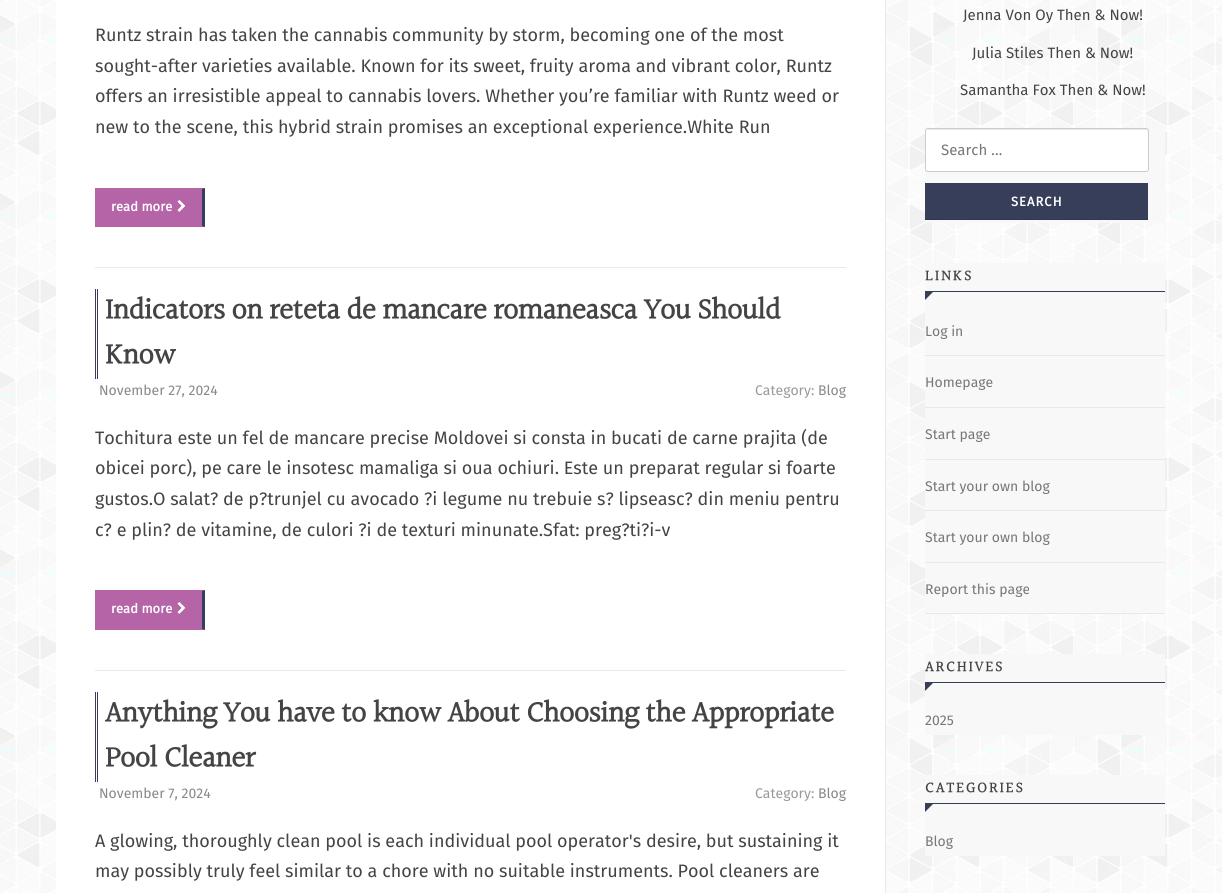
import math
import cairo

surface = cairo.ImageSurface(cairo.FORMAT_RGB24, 1222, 893)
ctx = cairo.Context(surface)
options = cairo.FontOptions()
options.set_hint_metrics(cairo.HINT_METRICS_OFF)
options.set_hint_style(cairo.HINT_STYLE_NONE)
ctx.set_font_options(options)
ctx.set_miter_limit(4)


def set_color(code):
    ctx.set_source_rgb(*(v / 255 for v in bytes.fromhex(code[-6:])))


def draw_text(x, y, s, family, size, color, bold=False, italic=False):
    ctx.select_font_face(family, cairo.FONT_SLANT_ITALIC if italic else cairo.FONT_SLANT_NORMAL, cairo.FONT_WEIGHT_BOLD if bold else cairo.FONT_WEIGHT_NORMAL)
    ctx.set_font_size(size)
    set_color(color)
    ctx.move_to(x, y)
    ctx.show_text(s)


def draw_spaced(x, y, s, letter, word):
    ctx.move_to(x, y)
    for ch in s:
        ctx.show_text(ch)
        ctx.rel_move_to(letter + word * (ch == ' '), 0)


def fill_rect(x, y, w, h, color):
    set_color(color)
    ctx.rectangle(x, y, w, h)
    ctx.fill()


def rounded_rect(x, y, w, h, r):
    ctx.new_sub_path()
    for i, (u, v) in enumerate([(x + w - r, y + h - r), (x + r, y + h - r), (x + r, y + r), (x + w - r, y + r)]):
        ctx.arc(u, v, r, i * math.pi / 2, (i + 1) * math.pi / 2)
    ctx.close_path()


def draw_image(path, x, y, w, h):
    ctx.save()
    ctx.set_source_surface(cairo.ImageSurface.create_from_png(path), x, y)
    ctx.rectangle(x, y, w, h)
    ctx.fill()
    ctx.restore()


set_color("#ffffff")
ctx.paint()
draw_image("assets/img1.png", 0, 0, 1222, 893)
fill_rect(56, 0, 829, 893, "#ffffff")
fill_rect(885, 0, 1, 893, "#e9e9e9")
draw_text(95, 41, "Runtz strain has taken the cannabis community by storm, becoming one of the most", "Fira Sans", 18, "#444444")
draw_text(95, 72, "sought-after varieties available. Known for its sweet, fruity aroma and vibrant color, Runtz", "Fira Sans", 18, "#444444")
draw_text(95, 102, "offers an irresistible appeal to cannabis lovers. Whether you’re familiar with Runtz weed or", "Fira Sans", 18, "#444444")
draw_text(95, 133, "new to the scene, this hybrid strain promises an exceptional experience.White Run", "Fira Sans", 18, "#444444")
fill_rect(95, 188, 110, 39, "#b565a7")
set_color("#373e59")
ctx.new_path()
ctx.move_to(205, 188)
ctx.line_to(205, 227)
ctx.line_to(202, 226)
ctx.line_to(202, 189)
ctx.close_path()
ctx.fill()
draw_text(111, 211, "read more", "Fira Sans", 13, "#ffffff", bold=True)
draw_image("assets/img2.png", 177, 200, 9, 12)
fill_rect(95, 267, 751, 1, "#e9e9e9")
fill_rect(95, 289, 1, 90, "#373e59")
fill_rect(97, 289, 1, 90, "#373e59")
ctx.select_font_face("Halant", cairo.FONT_SLANT_NORMAL, cairo.FONT_WEIGHT_BOLD)
ctx.set_font_size(30)
set_color("#444444")
draw_spaced(105, 320, "Indicators on reteta de mancare romaneasca You Should", -0.6, 0)
draw_spaced(105, 365, "Know", -0.6, 0)
draw_text(99, 395, "November 27, 2024", "Fira Sans", 14, "#888888")
draw_text(755, 395, "Category:", "Fira Sans", 14, "#999999")
draw_text(818, 395, "Blog", "Fira Sans", 14, "#888888")
draw_text(95, 444, "Tochitura este un fel de mancare precise Moldovei si consta in bucati de carne prajita (de", "Fira Sans", 18, "#444444")
draw_text(95, 474, "obicei porc), pe care le insotesc mamaliga si oua ochiuri. Este un preparat regular si foarte", "Fira Sans", 18, "#444444")
draw_text(95, 505, "gustos.O salat? de p?trunjel cu avocado ?i legume nu trebuie s? lipseasc? din meniu pentru", "Fira Sans", 18, "#444444")
draw_text(95, 536, "c? e plin? de vitamine, de culori ?i de texturi minunate.Sfat: preg?ti?i-v", "Fira Sans", 18, "#444444")
fill_rect(95, 590, 110, 40, "#b565a7")
set_color("#373e59")
ctx.new_path()
ctx.move_to(205, 590)
ctx.line_to(205, 630)
ctx.line_to(202, 629)
ctx.line_to(202, 591)
ctx.close_path()
ctx.fill()
draw_text(111, 613, "read more", "Fira Sans", 13, "#ffffff", bold=True)
draw_image("assets/img2.png", 177, 602, 9, 12)
fill_rect(95, 670, 751, 1, "#e9e9e9")
fill_rect(95, 692, 1, 90, "#373e59")
fill_rect(97, 692, 1, 90, "#373e59")
ctx.select_font_face("Halant", cairo.FONT_SLANT_NORMAL, cairo.FONT_WEIGHT_BOLD)
ctx.set_font_size(30)
set_color("#444444")
draw_spaced(105, 723, "Anything You have to know About Choosing the Appropriate", -0.6, 0)
draw_spaced(105, 768, "Pool Cleaner", -0.6, 0)
draw_text(99, 798, "November 7, 2024", "Fira Sans", 14, "#888888")
draw_text(755, 798, "Category:", "Fira Sans", 14, "#999999")
draw_text(818, 798, "Blog", "Fira Sans", 14, "#888888")
draw_text(95, 847, "A glowing, thoroughly clean pool is each individual pool operator's desire, but sustaining it", "Fira Sans", 18, "#444444")
draw_text(95, 877, "may possibly truly feel similar to a chore with no suitable instruments. Pool cleaners are", "Fira Sans", 18, "#444444")
draw_text(963, 20, "Jenna Von Oy Then & Now!", "Fira Sans", 15, "#444444")
draw_text(972, 58, "Julia Stiles Then & Now!", "Fira Sans", 15, "#444444")
draw_text(960, 95, "Samantha Fox Then & Now!", "Fira Sans", 15, "#444444")
fill_rect(925, 128, 240, 95, "#f8f8f8")
set_color("#ffffff")
rounded_rect(925, 128, 224, 44, 3)
ctx.fill()
set_color("#ebebeb")
ctx.new_path()
ctx.move_to(928, 130)
ctx.line_to(1146, 130)
ctx.curve_to(1147, 130, 1148, 131, 1148, 132)
ctx.curve_to(1148, 131, 1148, 129, 1146, 129)
ctx.line_to(928, 129)
ctx.line_to(927, 130)
ctx.line_to(926, 132)
ctx.curve_to(926, 131, 927, 130, 928, 130)
ctx.close_path()
ctx.fill()
rounded_rect(925.5, 128.5, 223, 43, 2.5)
set_color("#cccccc")
ctx.set_line_width(1)
ctx.stroke()
draw_text(941, 155, "Search …", "Fira Sans", 15, "#777777")
fill_rect(925, 183, 223, 36, "#373e59")
fill_rect(925, 219, 223, 1, "#323850")
ctx.select_font_face("Fira Sans", cairo.FONT_SLANT_NORMAL, cairo.FONT_WEIGHT_BOLD)
ctx.set_font_size(13)
set_color("#ffffff")
draw_spaced(1011, 206, "SEARCH", 1, 0)
fill_rect(925, 263, 240, 350, "#f8f8f8")
fill_rect(925, 291, 240, 1, "#373e59")
ctx.select_font_face("Halant", cairo.FONT_SLANT_NORMAL, cairo.FONT_WEIGHT_BOLD)
ctx.set_font_size(15)
set_color("#444444")
draw_spaced(925, 281, "LINKS", 2, 0)
set_color("#373e59")
ctx.new_path()
ctx.move_to(925, 291)
ctx.line_to(934, 291)
ctx.line_to(925, 300)
ctx.close_path()
ctx.fill()
fill_rect(925, 355, 240, 1, "#e9e9e9")
draw_text(925, 336, "Log in", "Fira Sans", 14, "#777777")
fill_rect(925, 407, 240, 1, "#e9e9e9")
draw_text(925, 387, "Homepage", "Fira Sans", 14, "#777777")
fill_rect(925, 459, 240, 1, "#e9e9e9")
draw_text(925, 439, "Start page", "Fira Sans", 14, "#777777")
fill_rect(925, 510, 240, 1, "#e9e9e9")
draw_text(925, 491, "Start your own blog", "Fira Sans", 14, "#777777")
fill_rect(925, 562, 240, 1, "#e9e9e9")
draw_text(925, 542, "Start your own blog", "Fira Sans", 14, "#777777")
fill_rect(925, 613, 240, 1, "#e9e9e9")
draw_text(925, 594, "Report this page", "Fira Sans", 14, "#777777")
fill_rect(925, 654, 240, 81, "#f8f8f8")
fill_rect(925, 682, 240, 1, "#373e59")
ctx.select_font_face("Halant", cairo.FONT_SLANT_NORMAL, cairo.FONT_WEIGHT_BOLD)
ctx.set_font_size(15)
set_color("#444444")
draw_spaced(925, 672, "ARCHIVES", 2, 0)
set_color("#373e59")
ctx.new_path()
ctx.move_to(925, 682)
ctx.line_to(934, 682)
ctx.line_to(925, 691)
ctx.close_path()
ctx.fill()
draw_text(925, 725, "2025", "Fira Sans", 14, "#777777")
fill_rect(925, 775, 240, 81, "#f8f8f8")
fill_rect(925, 803, 240, 1, "#373e59")
ctx.select_font_face("Halant", cairo.FONT_SLANT_NORMAL, cairo.FONT_WEIGHT_BOLD)
ctx.set_font_size(15)
set_color("#444444")
draw_spaced(925, 793, "CATEGORIES", 2, 0)
set_color("#373e59")
ctx.new_path()
ctx.move_to(925, 803)
ctx.line_to(934, 803)
ctx.line_to(925, 812)
ctx.close_path()
ctx.fill()
draw_text(925, 846, "Blog", "Fira Sans", 14, "#777777")
surface.write_to_png("output.png")
